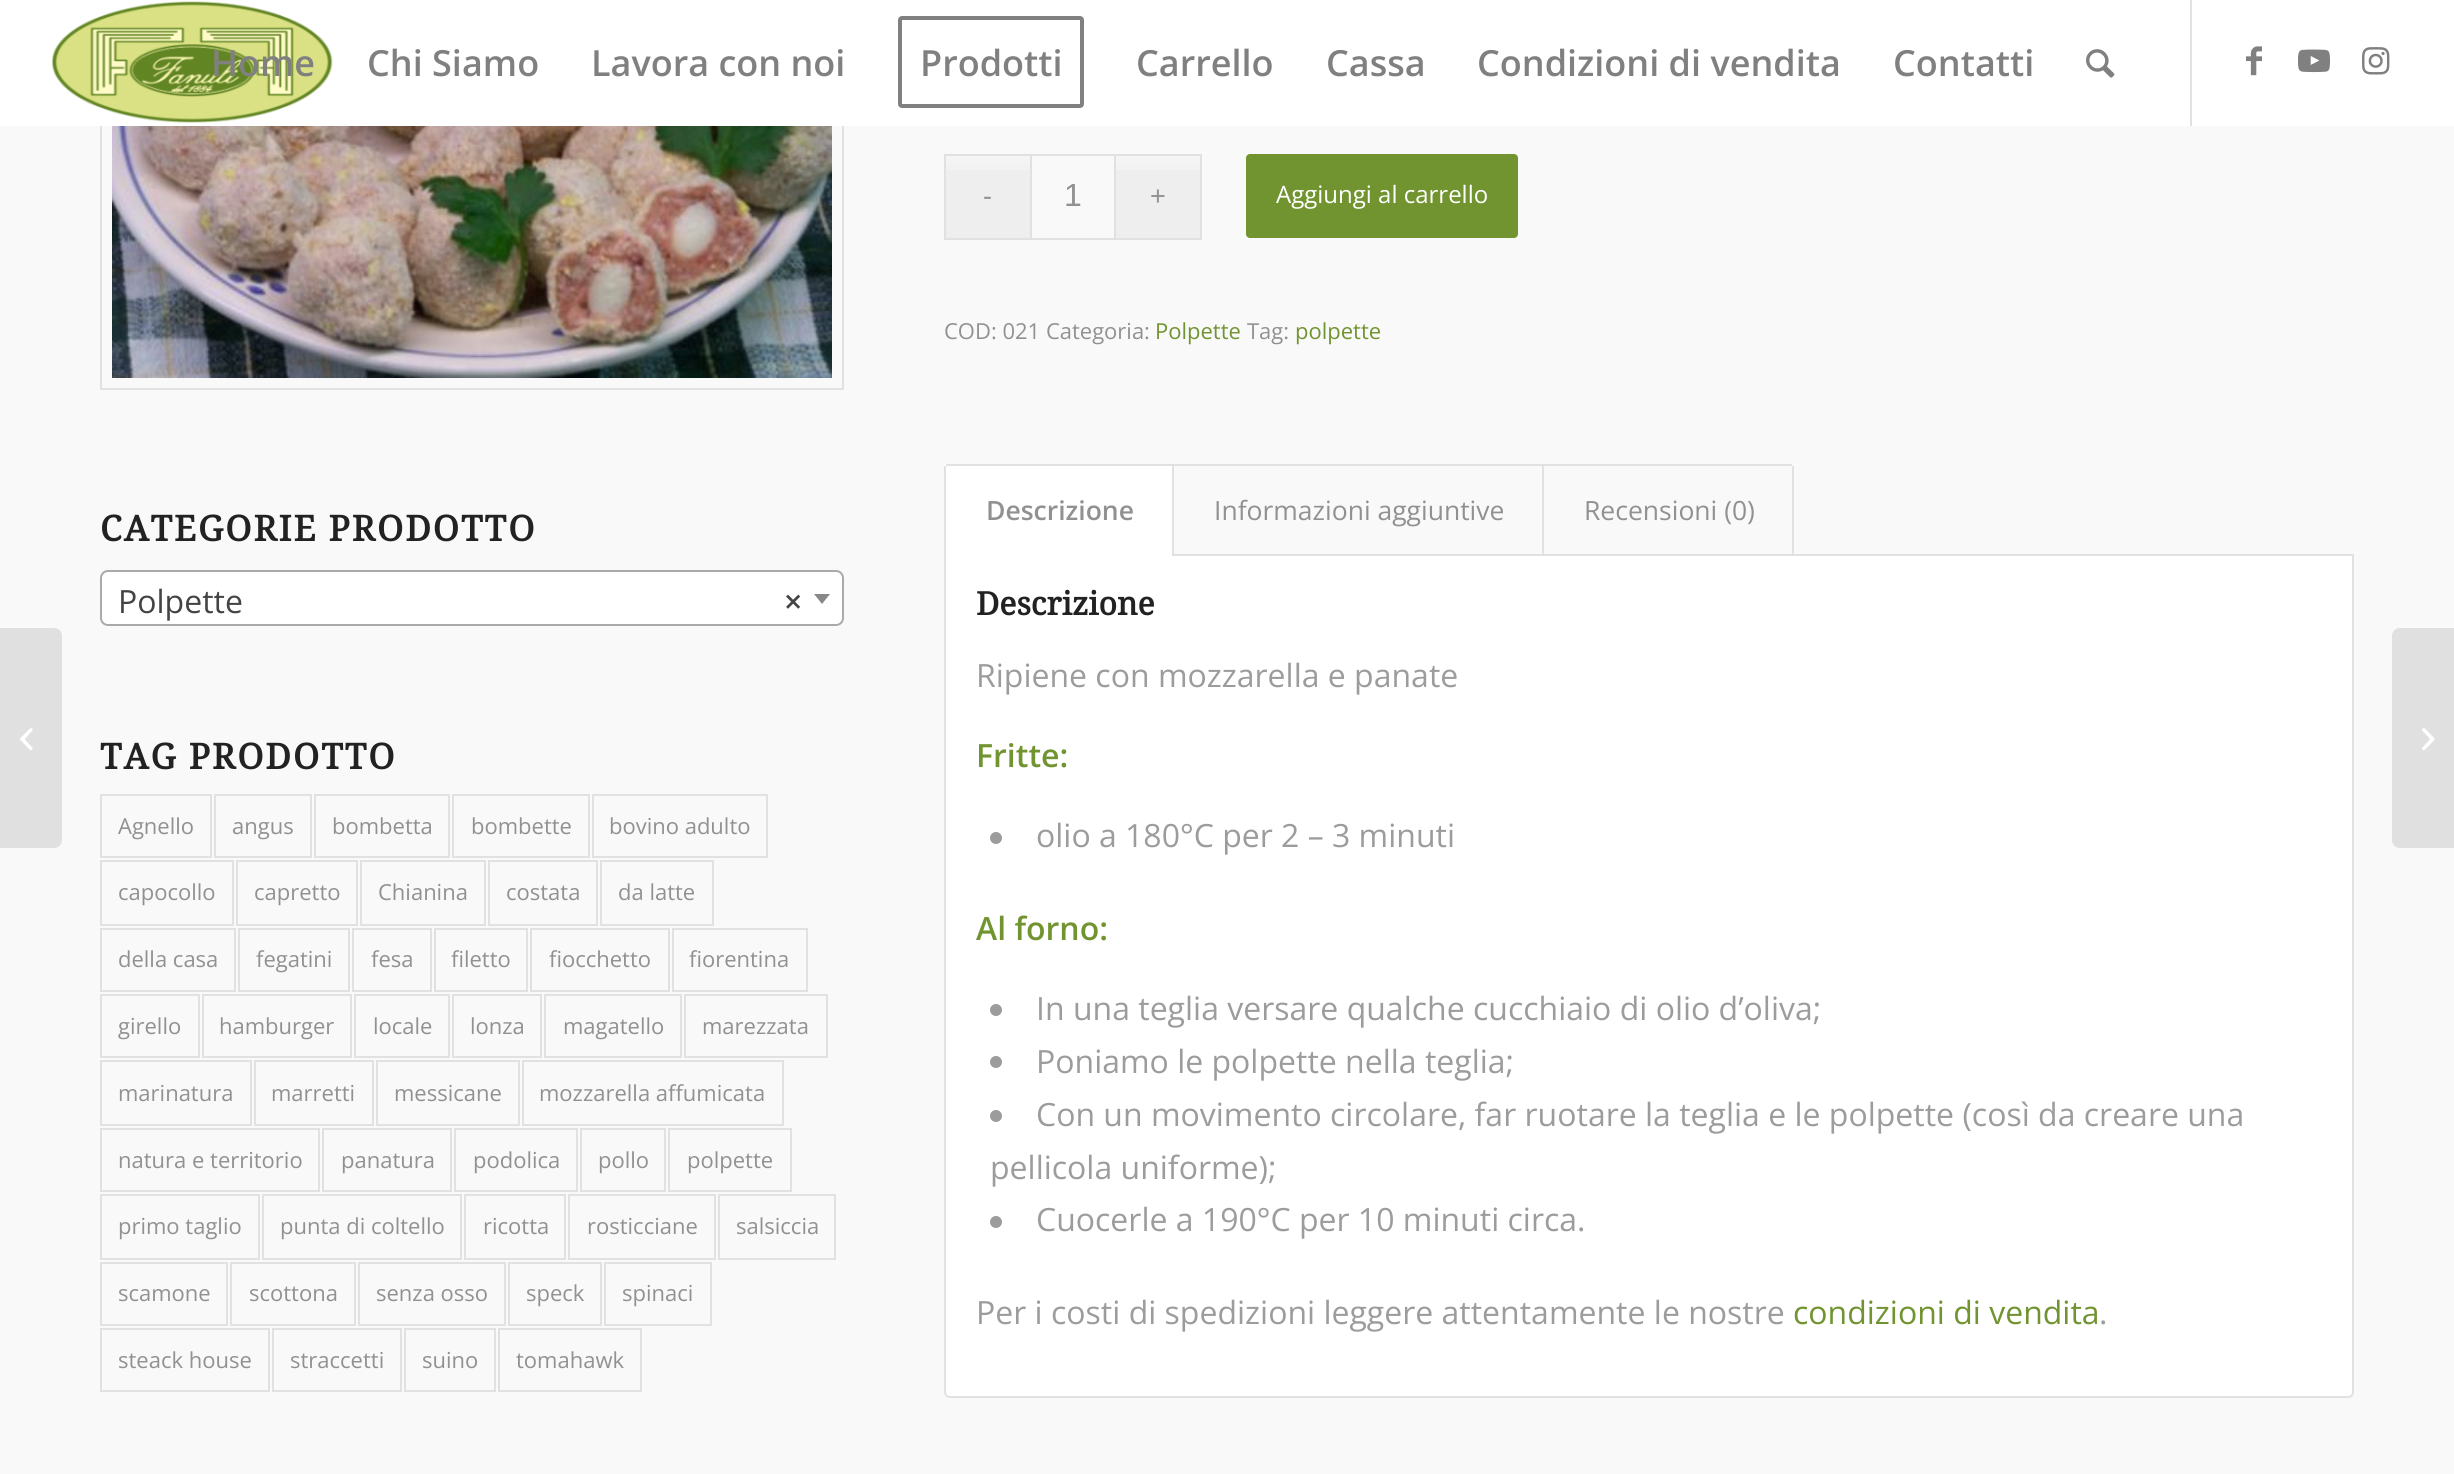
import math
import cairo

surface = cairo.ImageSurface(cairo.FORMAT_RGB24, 2454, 1474)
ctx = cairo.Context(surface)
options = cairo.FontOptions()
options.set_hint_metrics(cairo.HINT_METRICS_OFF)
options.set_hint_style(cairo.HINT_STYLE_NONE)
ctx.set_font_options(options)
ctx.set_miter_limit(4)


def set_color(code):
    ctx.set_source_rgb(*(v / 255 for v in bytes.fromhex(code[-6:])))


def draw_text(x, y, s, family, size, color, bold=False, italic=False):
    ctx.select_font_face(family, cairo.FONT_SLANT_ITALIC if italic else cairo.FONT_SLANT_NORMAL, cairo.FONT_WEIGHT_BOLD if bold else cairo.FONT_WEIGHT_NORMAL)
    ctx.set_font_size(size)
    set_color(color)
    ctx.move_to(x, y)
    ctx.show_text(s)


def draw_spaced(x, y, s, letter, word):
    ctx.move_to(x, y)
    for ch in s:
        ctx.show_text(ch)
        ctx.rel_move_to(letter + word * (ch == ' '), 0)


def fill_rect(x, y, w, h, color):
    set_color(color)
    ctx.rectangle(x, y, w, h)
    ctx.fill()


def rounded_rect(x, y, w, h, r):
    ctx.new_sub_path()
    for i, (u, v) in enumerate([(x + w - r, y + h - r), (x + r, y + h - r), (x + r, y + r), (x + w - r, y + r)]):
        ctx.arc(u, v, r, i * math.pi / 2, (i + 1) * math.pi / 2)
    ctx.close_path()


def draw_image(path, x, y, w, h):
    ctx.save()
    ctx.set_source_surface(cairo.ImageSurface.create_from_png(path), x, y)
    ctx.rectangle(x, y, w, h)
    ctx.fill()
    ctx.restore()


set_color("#f9f9f9")
ctx.paint()
ctx.rectangle(101, -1, 742, 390)
set_color("#e1e1e1")
ctx.stroke()
fill_rect(0, 0, 2454, 126, "#ffffff")
draw_image("assets/img1.png", 51, 1, 282, 122)
fill_rect(2190, 0, 2, 126, "#e1e1e1")
draw_text(211, 76, "Home", "Open Sans SemiBold", 36, "#808080")
draw_text(367, 76, "Chi Siamo", "Open Sans SemiBold", 36, "#808080")
draw_text(591, 76, "Lavora con noi", "Open Sans SemiBold", 36, "#808080")
rounded_rect(900, 18, 182, 88, 2)
ctx.set_line_width(4)
ctx.stroke()
draw_text(920, 76, "Prodotti", "Open Sans SemiBold", 36, "#808080")
draw_text(1136, 76, "Carrello", "Open Sans SemiBold", 36, "#808080")
draw_text(1326, 76, "Cassa", "Open Sans SemiBold", 36, "#808080")
draw_text(1477, 76, "Condizioni di vendita", "Open Sans SemiBold", 36, "#808080")
draw_text(1893, 76, "Contatti", "Open Sans SemiBold", 36, "#808080")
draw_image("assets/img2.png", 2086, 49, 29, 29)
draw_image("assets/img3.png", 2246, 46, 16, 30)
draw_image("assets/img4.png", 2298, 49, 32, 24)
draw_image("assets/img5.png", 2362, 47, 28, 28)
set_color("#e0e0e0")
ctx.new_path()
ctx.move_to(0, 628)
ctx.line_to(54, 628)
ctx.curve_to(58.5, 628, 62, 631.5, 62, 636)
ctx.line_to(62, 840)
ctx.curve_to(62, 844.5, 58.5, 848, 54, 848)
ctx.line_to(0, 848)
ctx.close_path()
ctx.fill()
draw_image("assets/img6.png", 20, 728, 13, 23)
draw_image("assets/img7.png", 112, 126, 720, 252)
ctx.select_font_face("Droid Serif", cairo.FONT_SLANT_NORMAL, cairo.FONT_WEIGHT_BOLD)
ctx.set_font_size(35.25)
set_color("#222222")
draw_spaced(100, 541, "CATEGORIE PRODOTTO", 2, 0)
set_color("#ffffff")
rounded_rect(101, 571, 742, 54, 7)
ctx.fill_preserve()
set_color("#aaaaaa")
ctx.set_line_width(2)
ctx.stroke()
draw_text(118, 613, "Polpette", "Open Sans", 32, "#444444")
draw_text(784, 613, "×", "Open Sans SemiBold", 32, "#444444")
set_color("#888888")
ctx.new_path()
ctx.move_to(814, 594)
ctx.line_to(830, 594)
ctx.line_to(822, 604)
ctx.close_path()
ctx.fill()
ctx.select_font_face("Droid Serif", cairo.FONT_SLANT_NORMAL, cairo.FONT_WEIGHT_BOLD)
ctx.set_font_size(35.25)
set_color("#222222")
draw_spaced(100, 769, "TAG PRODOTTO", 2, 0)
ctx.rectangle(101, 795, 110, 62)
set_color("#e1e1e1")
ctx.stroke()
draw_text(118, 834, "Agnello", "Open Sans", 22, "#919191")
ctx.rectangle(215, 795, 96, 62)
set_color("#e1e1e1")
ctx.stroke()
draw_text(232, 834, "angus", "Open Sans", 22, "#919191")
ctx.rectangle(315, 795, 134, 62)
set_color("#e1e1e1")
ctx.stroke()
draw_text(332, 834, "bombetta", "Open Sans", 22, "#919191")
ctx.rectangle(453, 795, 136, 62)
set_color("#e1e1e1")
ctx.stroke()
draw_text(471, 834, "bombette", "Open Sans", 22, "#919191")
ctx.rectangle(593, 795, 174, 62)
set_color("#e1e1e1")
ctx.stroke()
draw_text(609, 834, "bovino adulto", "Open Sans", 22, "#919191")
ctx.rectangle(101, 861, 132, 64)
set_color("#e1e1e1")
ctx.stroke()
draw_text(118, 900, "capocollo", "Open Sans", 22, "#919191")
ctx.rectangle(237, 861, 120, 64)
set_color("#e1e1e1")
ctx.stroke()
draw_text(254, 900, "capretto", "Open Sans", 22, "#919191")
ctx.rectangle(361, 861, 124, 64)
set_color("#e1e1e1")
ctx.stroke()
draw_text(378, 900, "Chianina", "Open Sans", 22, "#919191")
ctx.rectangle(489, 861, 108, 64)
set_color("#e1e1e1")
ctx.stroke()
draw_text(506, 900, "costata", "Open Sans", 22, "#919191")
ctx.rectangle(601, 861, 112, 64)
set_color("#e1e1e1")
ctx.stroke()
draw_text(618, 900, "da latte", "Open Sans", 22, "#919191")
ctx.rectangle(101, 929, 134, 62)
set_color("#e1e1e1")
ctx.stroke()
draw_text(118, 967, "della casa", "Open Sans", 22, "#919191")
ctx.rectangle(239, 929, 110, 62)
set_color("#e1e1e1")
ctx.stroke()
draw_text(256, 967, "fegatini", "Open Sans", 22, "#919191")
ctx.rectangle(353, 929, 78, 62)
set_color("#e1e1e1")
ctx.stroke()
draw_text(371, 967, "fesa", "Open Sans", 22, "#919191")
ctx.rectangle(435, 929, 92, 62)
set_color("#e1e1e1")
ctx.stroke()
draw_text(451, 967, "filetto", "Open Sans", 22, "#919191")
ctx.rectangle(531, 929, 138, 62)
set_color("#e1e1e1")
ctx.stroke()
draw_text(549, 967, "fiocchetto", "Open Sans", 22, "#919191")
ctx.rectangle(673, 929, 134, 62)
set_color("#e1e1e1")
ctx.stroke()
draw_text(689, 967, "fiorentina", "Open Sans", 22, "#919191")
ctx.rectangle(101, 995, 98, 62)
set_color("#e1e1e1")
ctx.stroke()
draw_text(118, 1034, "girello", "Open Sans", 22, "#919191")
ctx.rectangle(203, 995, 148, 62)
set_color("#e1e1e1")
ctx.stroke()
draw_text(219, 1034, "hamburger", "Open Sans", 22, "#919191")
ctx.rectangle(355, 995, 94, 62)
set_color("#e1e1e1")
ctx.stroke()
draw_text(373, 1034, "locale", "Open Sans", 22, "#919191")
ctx.rectangle(453, 995, 88, 62)
set_color("#e1e1e1")
ctx.stroke()
draw_text(470, 1034, "lonza", "Open Sans", 22, "#919191")
ctx.rectangle(545, 995, 136, 62)
set_color("#e1e1e1")
ctx.stroke()
draw_text(563, 1034, "magatello", "Open Sans", 22, "#919191")
ctx.rectangle(685, 995, 142, 62)
set_color("#e1e1e1")
ctx.stroke()
draw_text(702, 1034, "marezzata", "Open Sans", 22, "#919191")
ctx.rectangle(101, 1061, 150, 64)
set_color("#e1e1e1")
ctx.stroke()
draw_text(118, 1101, "marinatura", "Open Sans", 22, "#919191")
ctx.rectangle(255, 1061, 118, 64)
set_color("#e1e1e1")
ctx.stroke()
draw_text(271, 1101, "marretti", "Open Sans", 22, "#919191")
ctx.rectangle(377, 1061, 142, 64)
set_color("#e1e1e1")
ctx.stroke()
draw_text(394, 1101, "messicane", "Open Sans", 22, "#919191")
ctx.rectangle(523, 1061, 260, 64)
set_color("#e1e1e1")
ctx.stroke()
draw_text(539, 1101, "mozzarella affumicata", "Open Sans", 22, "#919191")
ctx.rectangle(101, 1129, 218, 62)
set_color("#e1e1e1")
ctx.stroke()
draw_text(118, 1168, "natura e territorio", "Open Sans", 22, "#919191")
ctx.rectangle(323, 1129, 128, 62)
set_color("#e1e1e1")
ctx.stroke()
draw_text(341, 1168, "panatura", "Open Sans", 22, "#919191")
ctx.rectangle(455, 1129, 122, 62)
set_color("#e1e1e1")
ctx.stroke()
draw_text(473, 1168, "podolica", "Open Sans", 22, "#919191")
ctx.rectangle(581, 1129, 84, 62)
set_color("#e1e1e1")
ctx.stroke()
draw_text(598, 1168, "pollo", "Open Sans", 22, "#919191")
ctx.rectangle(669, 1129, 122, 62)
set_color("#e1e1e1")
ctx.stroke()
draw_text(687, 1168, "polpette", "Open Sans", 22, "#919191")
ctx.rectangle(101, 1195, 158, 64)
set_color("#e1e1e1")
ctx.stroke()
draw_text(118, 1234, "primo taglio", "Open Sans", 22, "#919191")
ctx.rectangle(263, 1195, 198, 64)
set_color("#e1e1e1")
ctx.stroke()
draw_text(280, 1234, "punta di coltello", "Open Sans", 22, "#919191")
ctx.rectangle(465, 1195, 100, 64)
set_color("#e1e1e1")
ctx.stroke()
draw_text(483, 1234, "ricotta", "Open Sans", 22, "#919191")
ctx.rectangle(569, 1195, 146, 64)
set_color("#e1e1e1")
ctx.stroke()
draw_text(587, 1234, "rosticciane", "Open Sans", 22, "#919191")
ctx.rectangle(719, 1195, 116, 64)
set_color("#e1e1e1")
ctx.stroke()
draw_text(736, 1234, "salsiccia", "Open Sans", 22, "#919191")
ctx.rectangle(101, 1263, 126, 62)
set_color("#e1e1e1")
ctx.stroke()
draw_text(118, 1301, "scamone", "Open Sans", 22, "#919191")
ctx.rectangle(231, 1263, 124, 62)
set_color("#e1e1e1")
ctx.stroke()
draw_text(249, 1301, "scottona", "Open Sans", 22, "#919191")
ctx.rectangle(359, 1263, 146, 62)
set_color("#e1e1e1")
ctx.stroke()
draw_text(376, 1301, "senza osso", "Open Sans", 22, "#919191")
ctx.rectangle(509, 1263, 92, 62)
set_color("#e1e1e1")
ctx.stroke()
draw_text(526, 1301, "speck", "Open Sans", 22, "#919191")
ctx.rectangle(605, 1263, 106, 62)
set_color("#e1e1e1")
ctx.stroke()
draw_text(622, 1301, "spinaci", "Open Sans", 22, "#919191")
ctx.rectangle(101, 1329, 168, 62)
set_color("#e1e1e1")
ctx.stroke()
draw_text(118, 1368, "steack house", "Open Sans", 22, "#919191")
ctx.rectangle(273, 1329, 128, 62)
set_color("#e1e1e1")
ctx.stroke()
draw_text(290, 1368, "straccetti", "Open Sans", 22, "#919191")
ctx.rectangle(405, 1329, 90, 62)
set_color("#e1e1e1")
ctx.stroke()
draw_text(422, 1368, "suino", "Open Sans", 22, "#919191")
ctx.rectangle(499, 1329, 142, 62)
set_color("#e1e1e1")
ctx.stroke()
draw_text(516, 1368, "tomahawk", "Open Sans", 22, "#919191")
fill_rect(946, 156, 84, 82, "#eeeeee")
draw_image("assets/img8.png", 946, 156, 84, 14)
fill_rect(1116, 156, 84, 82, "#eeeeee")
draw_image("assets/img8.png", 1116, 156, 84, 14)
draw_text(983, 205, "-", "Liberation Sans", 27, "#919191")
fill_rect(944, 154, 86, 2, "#e1e1e1")
fill_rect(944, 238, 86, 2, "#e1e1e1")
fill_rect(944, 154, 2, 86, "#e1e1e1")
ctx.rectangle(1031, 155, 84, 84)
ctx.stroke()
draw_text(1064, 206, "1", "Liberation Sans", 32, "#919191")
draw_text(1150, 205, "+", "Liberation Sans", 27, "#919191")
fill_rect(1116, 154, 86, 2, "#e1e1e1")
fill_rect(1200, 154, 2, 86, "#e1e1e1")
fill_rect(1116, 238, 86, 2, "#e1e1e1")
set_color("#719430")
rounded_rect(1246, 154, 272, 84, 4)
ctx.fill()
draw_text(1276, 203, "Aggiungi al carrello", "Open Sans", 24, "#ffffff")
draw_text(944, 339, "COD: 021 Categoria:", "Open Sans", 22, "#919191")
draw_text(1155, 339, "Polpette", "Open Sans", 22, "#719430")
draw_text(1247, 339, "Tag:", "Open Sans", 22, "#919191")
draw_text(1295, 339, "polpette", "Open Sans", 22, "#719430")
set_color("#ffffff")
ctx.new_path()
ctx.move_to(945, 555)
ctx.line_to(2353, 555)
ctx.line_to(2353, 1392)
ctx.curve_to(2353, 1395, 2351, 1397, 2348, 1397)
ctx.line_to(950, 1397)
ctx.curve_to(947, 1397, 945, 1395, 945, 1392)
ctx.close_path()
ctx.fill_preserve()
set_color("#e1e1e1")
ctx.stroke()
fill_rect(944, 464, 228, 92, "#ffffff")
fill_rect(1172, 464, 372, 2, "#e1e1e1")
fill_rect(946, 464, 228, 2, "#e1e1e1")
fill_rect(1172, 464, 2, 92, "#e1e1e1")
fill_rect(944, 466, 2, 90, "#e1e1e1")
draw_text(986, 520, "Descrizione", "Open Sans SemiBold", 26.5, "#919191")
fill_rect(1542, 464, 2, 92, "#e1e1e1")
draw_text(1214, 520, "Informazioni aggiuntive", "Open Sans", 26.5, "#919191")
fill_rect(1542, 464, 250, 2, "#e1e1e1")
fill_rect(1792, 466, 2, 90, "#e1e1e1")
draw_text(1584, 520, "Recensioni (0)", "Open Sans", 26.5, "#919191")
draw_text(976, 615, "Descrizione", "Droid Serif", 32, "#222222", bold=True)
draw_text(976, 687, "Ripiene con mozzarella e panate", "Open Sans", 32, "#9c9c9c")
draw_text(976, 767, "Fritte:", "Open Sans SemiBold", 32, "#719430")
set_color("#9c9c9c")
ctx.new_path()
ctx.arc(996, 838, 6, 0, 2 * math.pi)
ctx.fill()
draw_text(1036, 847, "olio a 180°C per 2 – 3 minuti", "Open Sans", 32, "#9c9c9c")
draw_text(976, 940, "Al forno:", "Open Sans SemiBold", 32, "#719430")
set_color("#9c9c9c")
ctx.new_path()
ctx.arc(996, 1010, 6, 0, 2 * math.pi)
ctx.fill()
draw_text(1036, 1020, "In una teglia versare qualche cucchiaio di olio d’oliva;", "Open Sans", 32, "#9c9c9c")
ctx.new_path()
ctx.arc(996, 1062, 6, 0, 2 * math.pi)
ctx.fill()
draw_text(1036, 1073, "Poniamo le polpette nella teglia;", "Open Sans", 32, "#9c9c9c")
ctx.new_path()
ctx.arc(996, 1116, 6, 0, 2 * math.pi)
ctx.fill()
draw_text(1036, 1126, "Con un movimento circolare, far ruotare la teglia e le polpette (così da creare una", "Open Sans", 32, "#9c9c9c")
draw_text(990, 1179, "pellicola uniforme);", "Open Sans", 32, "#9c9c9c")
ctx.new_path()
ctx.arc(996, 1222, 6, 0, 2 * math.pi)
ctx.fill()
draw_text(1036, 1231, "Cuocerle a 190°C per 10 minuti circa.", "Open Sans", 32, "#9c9c9c")
draw_text(976, 1324, "Per i costi di spedizioni leggere attentamente le nostre", "Open Sans", 32, "#9c9c9c")
draw_text(1793, 1324, "condizioni di vendita", "Open Sans", 32, "#719430")
draw_text(2099, 1324, ".", "Open Sans", 32, "#9c9c9c")
set_color("#e0e0e0")
ctx.new_path()
ctx.move_to(2400, 628)
ctx.line_to(2454, 628)
ctx.line_to(2454, 848)
ctx.line_to(2400, 848)
ctx.curve_to(2395.5, 848, 2392, 844.5, 2392, 840)
ctx.line_to(2392, 636)
ctx.curve_to(2392, 631.5, 2395.5, 628, 2400, 628)
ctx.close_path()
ctx.fill()
draw_image("assets/img9.png", 2422, 728, 13, 23)
surface.write_to_png("output.png")
